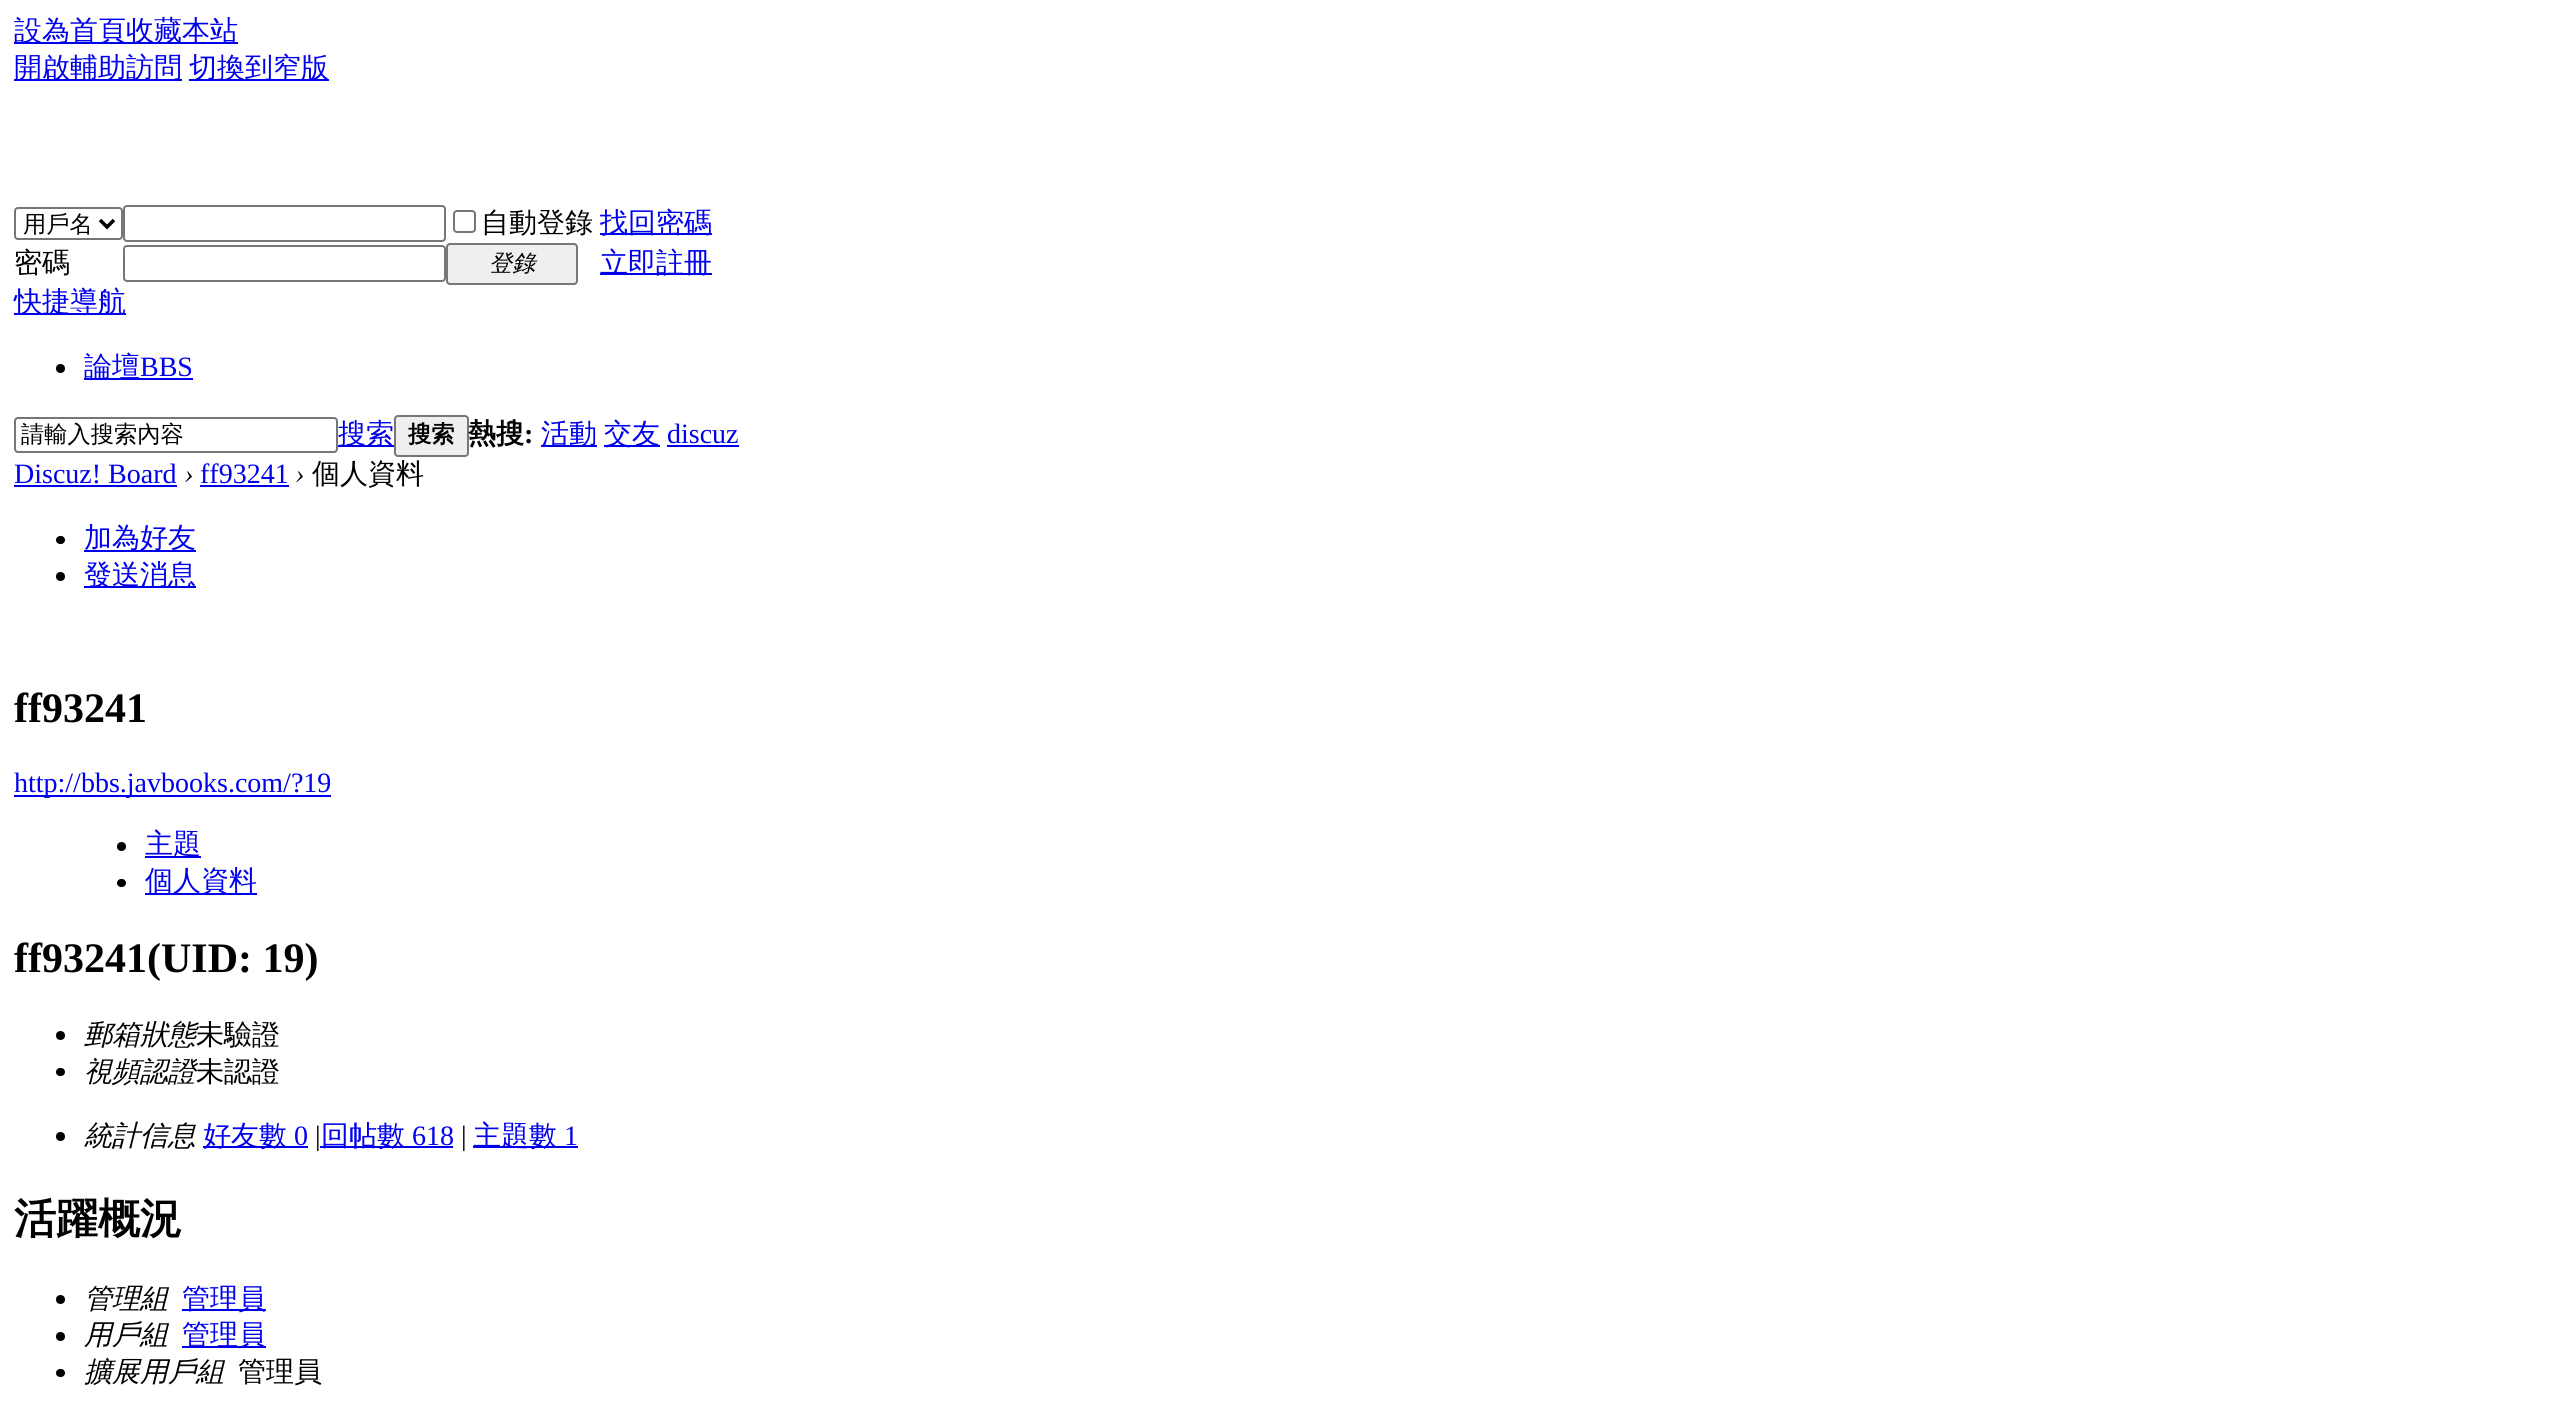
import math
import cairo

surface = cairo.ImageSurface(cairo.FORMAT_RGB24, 2558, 1412)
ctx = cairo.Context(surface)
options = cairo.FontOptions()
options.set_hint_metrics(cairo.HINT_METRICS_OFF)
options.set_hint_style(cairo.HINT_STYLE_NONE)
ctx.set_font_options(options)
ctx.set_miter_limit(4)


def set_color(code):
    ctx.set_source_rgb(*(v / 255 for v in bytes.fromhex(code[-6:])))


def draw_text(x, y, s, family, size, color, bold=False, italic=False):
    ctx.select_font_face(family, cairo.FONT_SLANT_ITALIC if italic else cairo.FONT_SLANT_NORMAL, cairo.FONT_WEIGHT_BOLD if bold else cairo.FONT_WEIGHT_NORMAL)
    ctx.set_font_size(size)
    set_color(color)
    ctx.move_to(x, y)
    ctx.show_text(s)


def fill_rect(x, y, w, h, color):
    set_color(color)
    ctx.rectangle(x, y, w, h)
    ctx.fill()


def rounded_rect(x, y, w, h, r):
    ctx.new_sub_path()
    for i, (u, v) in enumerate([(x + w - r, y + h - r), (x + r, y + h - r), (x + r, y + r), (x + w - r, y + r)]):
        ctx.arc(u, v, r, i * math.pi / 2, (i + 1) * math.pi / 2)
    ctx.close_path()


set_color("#ffffff")
ctx.paint()
fill_rect(14, 42, 224, 2, "#0000ee")
draw_text(14, 40, "設為首頁收藏本站", "WenQuanYi Zen Hei Medium", 28, "#0000ee")
fill_rect(14, 79, 168, 2, "#0000ee")
draw_text(14, 77, "開啟輔助訪問", "WenQuanYi Zen Hei Medium", 28, "#0000ee")
fill_rect(189, 79, 140, 2, "#0000ee")
draw_text(189, 77, "切換到窄版", "WenQuanYi Zen Hei Medium", 28, "#0000ee")
rounded_rect(15, 208, 107, 31, 3)
set_color("#767676")
ctx.stroke()
ctx.new_path()
ctx.move_to(100, 220)
ctx.line_to(107, 227)
ctx.line_to(114, 220)
set_color("#000000")
ctx.set_line_width(3.5)
ctx.stroke()
draw_text(23, 232, "用戶名", "WenQuanYi Zen Hei Medium", 23.25, "#000000")
rounded_rect(124, 206, 321, 35, 3)
set_color("#767676")
ctx.set_line_width(2)
ctx.stroke()
rounded_rect(454, 211, 21, 21, 3)
ctx.stroke()
draw_text(481, 232, "自動登錄", "WenQuanYi Zen Hei Medium", 28, "#000000")
fill_rect(600, 233, 112, 2, "#0000ee")
draw_text(600, 232, "找回密碼", "WenQuanYi Zen Hei Medium", 28, "#0000ee")
draw_text(14, 272, "密碼", "WenQuanYi Zen Hei Medium", 28, "#000000")
rounded_rect(124, 246, 321, 35, 3)
set_color("#767676")
ctx.stroke()
set_color("#efefef")
rounded_rect(447, 244, 130, 40, 3)
ctx.fill_preserve()
set_color("#767676")
ctx.stroke()
draw_text(489, 271, "登錄", "WenQuanYi Zen Hei Medium", 23.25, "#000000", italic=True)
fill_rect(600, 273, 112, 2, "#0000ee")
draw_text(600, 272, "立即註冊", "WenQuanYi Zen Hei Medium", 28, "#0000ee")
fill_rect(14, 313, 112, 2, "#0000ee")
draw_text(14, 311, "快捷導航", "WenQuanYi Zen Hei Medium", 28, "#0000ee")
set_color("#000000")
ctx.new_path()
ctx.arc(60.5, 368.5, 4.5, 0, 2 * math.pi)
ctx.fill()
fill_rect(84, 378, 109, 2, "#0000ee")
draw_text(84, 376, "論壇", "WenQuanYi Zen Hei Medium", 28, "#0000ee")
draw_text(140, 376, "BBS", "Liberation Serif", 28, "#0000ee")
rounded_rect(15, 418, 322, 34, 3)
set_color("#767676")
ctx.stroke()
draw_text(21, 442, "請輸入搜索內容", "WenQuanYi Zen Hei Medium", 23.25, "#000000")
fill_rect(338, 445, 56, 2, "#0000ee")
draw_text(338, 443, "搜索", "WenQuanYi Zen Hei Medium", 28, "#0000ee")
set_color("#efefef")
rounded_rect(395, 416, 73, 40, 3)
ctx.fill_preserve()
set_color("#767676")
ctx.stroke()
draw_text(408, 442, "搜索", "WenQuanYi Zen Hei", 23.25, "#000000", bold=True)
draw_text(468, 443, "熱搜", "WenQuanYi Zen Hei", 28, "#000000", bold=True)
draw_text(524, 443, ":", "Liberation Serif", 28, "#000000", bold=True)
fill_rect(541, 445, 56, 2, "#0000ee")
draw_text(541, 443, "活動", "WenQuanYi Zen Hei Medium", 28, "#0000ee")
fill_rect(604, 445, 56, 2, "#0000ee")
draw_text(604, 443, "交友", "WenQuanYi Zen Hei Medium", 28, "#0000ee")
draw_text(667, 443, "discuz", "Liberation Serif", 28, "#0000ee")
fill_rect(667, 445, 72, 2, "#0000ee")
draw_text(14, 483, "Discuz! Board", "Liberation Serif", 28, "#0000ee")
fill_rect(14, 485, 163, 2, "#0000ee")
draw_text(184, 483, "›", "Liberation Serif", 28, "#000000", italic=True)
draw_text(200, 483, "ff93241", "Liberation Serif", 28, "#0000ee")
fill_rect(200, 485, 89, 2, "#0000ee")
draw_text(295, 483, "›", "Liberation Serif", 28, "#000000", italic=True)
draw_text(312, 483, "個人資料", "WenQuanYi Zen Hei Medium", 28, "#000000")
rounded_rect(56, 536, 9, 8, 4)
ctx.fill()
fill_rect(84, 550, 112, 2, "#0000ee")
draw_text(84, 547, "加為好友", "WenQuanYi Zen Hei Medium", 28, "#0000ee")
set_color("#000000")
ctx.new_path()
ctx.arc(60.5, 576.5, 4.5, 0, 2 * math.pi)
ctx.fill()
fill_rect(84, 586, 112, 2, "#0000ee")
draw_text(84, 584, "發送消息", "WenQuanYi Zen Hei Medium", 28, "#0000ee")
draw_text(14, 722, "ff93241", "Liberation Serif", 42, "#000000", bold=True)
fill_rect(14, 795, 317, 2, "#0000ee")
draw_text(14, 792, "http://bbs.javbooks.com/?19", "Liberation Serif", 28, "#0000ee")
set_color("#000000")
ctx.new_path()
ctx.arc(121.5, 846.5, 4.5, 0, 2 * math.pi)
ctx.fill()
fill_rect(145, 856, 56, 2, "#0000ee")
draw_text(145, 853, "主題", "WenQuanYi Zen Hei Medium", 28, "#0000ee")
set_color("#000000")
rounded_rect(117, 879, 9, 8, 4)
ctx.fill()
fill_rect(145, 893, 112, 2, "#0000ee")
draw_text(145, 890, "個人資料", "WenQuanYi Zen Hei Medium", 28, "#0000ee")
draw_text(14, 972, "ff93241(UID: 19)", "Liberation Serif", 42, "#000000", bold=True)
ctx.new_path()
ctx.arc(60.5, 1035.5, 4.5, 0, 2 * math.pi)
ctx.fill()
draw_text(84, 1044, "郵箱狀態", "WenQuanYi Zen Hei Medium", 28, "#000000", italic=True)
draw_text(196, 1044, "未驗證", "WenQuanYi Zen Hei Medium", 28, "#000000")
rounded_rect(56, 1068, 9, 8, 4)
ctx.fill()
draw_text(84, 1081, "視頻認證", "WenQuanYi Zen Hei Medium", 28, "#000000", italic=True)
draw_text(196, 1081, "未認證", "WenQuanYi Zen Hei Medium", 28, "#000000")
ctx.new_path()
ctx.arc(60.5, 1136.5, 4.5, 0, 2 * math.pi)
ctx.fill()
draw_text(84, 1145, "統計信息", "WenQuanYi Zen Hei Medium", 28, "#000000", italic=True)
fill_rect(203, 1146, 105, 2, "#0000ee")
draw_text(203, 1145, "好友數", "WenQuanYi Zen Hei Medium", 28, "#0000ee")
draw_text(294, 1145, "0", "Liberation Serif", 28, "#0000ee")
draw_text(315, 1145, "|", "Liberation Serif", 28, "#000000")
fill_rect(320, 1146, 133, 2, "#0000ee")
draw_text(321, 1145, "回帖數", "WenQuanYi Zen Hei Medium", 28, "#0000ee")
draw_text(412, 1145, "618", "Liberation Serif", 28, "#0000ee")
draw_text(461, 1145, "|", "Liberation Serif", 28, "#000000")
fill_rect(473, 1146, 105, 2, "#0000ee")
draw_text(473, 1145, "主題數", "WenQuanYi Zen Hei Medium", 28, "#0000ee")
draw_text(564, 1145, "1", "Liberation Serif", 28, "#0000ee")
draw_text(14, 1233, "活躍概況", "WenQuanYi Zen Hei", 42, "#000000", bold=True)
ctx.new_path()
ctx.arc(60.5, 1299.5, 4.5, 0, 2 * math.pi)
ctx.fill()
draw_text(84, 1308, "管理組", "WenQuanYi Zen Hei Medium", 28, "#000000", italic=True)
fill_rect(182, 1309, 84, 2, "#0000ee")
draw_text(182, 1308, "管理員", "WenQuanYi Zen Hei Medium", 28, "#0000ee")
set_color("#000000")
ctx.new_path()
ctx.arc(60.5, 1336.5, 4.5, 0, 2 * math.pi)
ctx.fill()
draw_text(84, 1344, "用戶組", "WenQuanYi Zen Hei Medium", 28, "#000000", italic=True)
fill_rect(182, 1346, 84, 2, "#0000ee")
draw_text(182, 1344, "管理員", "WenQuanYi Zen Hei Medium", 28, "#0000ee")
set_color("#000000")
rounded_rect(56, 1369, 9, 8, 4)
ctx.fill()
draw_text(84, 1381, "擴展用戶組", "WenQuanYi Zen Hei Medium", 28, "#000000", italic=True)
draw_text(238, 1381, "管理員", "WenQuanYi Zen Hei Medium", 28, "#000000")
surface.write_to_png("output.png")
